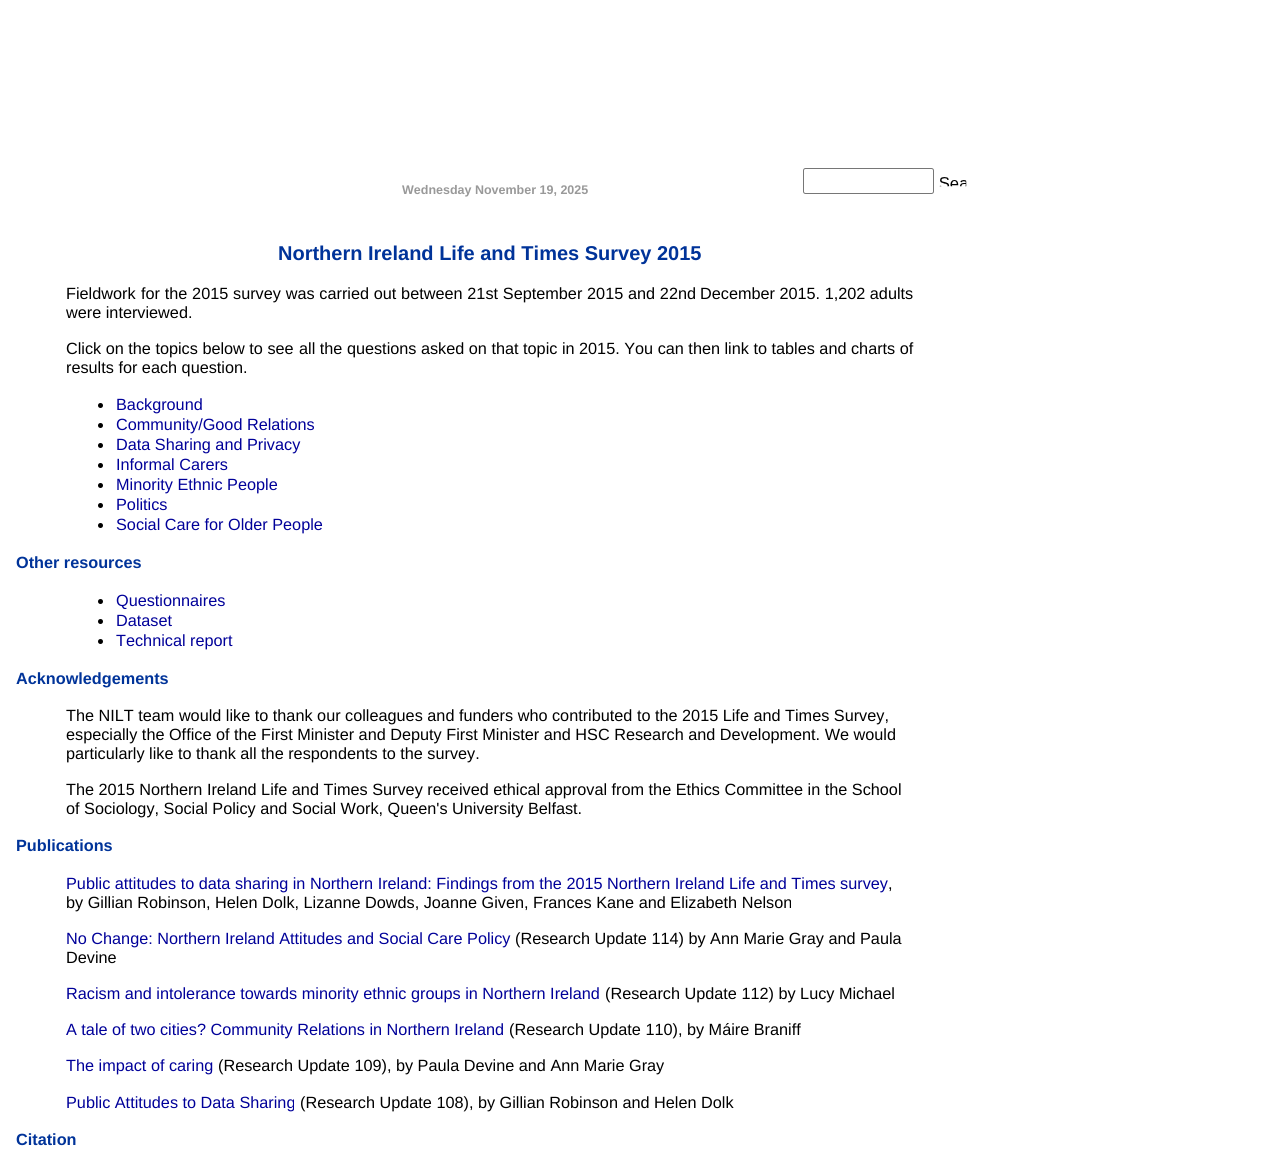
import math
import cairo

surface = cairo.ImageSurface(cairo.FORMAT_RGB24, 1261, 1168)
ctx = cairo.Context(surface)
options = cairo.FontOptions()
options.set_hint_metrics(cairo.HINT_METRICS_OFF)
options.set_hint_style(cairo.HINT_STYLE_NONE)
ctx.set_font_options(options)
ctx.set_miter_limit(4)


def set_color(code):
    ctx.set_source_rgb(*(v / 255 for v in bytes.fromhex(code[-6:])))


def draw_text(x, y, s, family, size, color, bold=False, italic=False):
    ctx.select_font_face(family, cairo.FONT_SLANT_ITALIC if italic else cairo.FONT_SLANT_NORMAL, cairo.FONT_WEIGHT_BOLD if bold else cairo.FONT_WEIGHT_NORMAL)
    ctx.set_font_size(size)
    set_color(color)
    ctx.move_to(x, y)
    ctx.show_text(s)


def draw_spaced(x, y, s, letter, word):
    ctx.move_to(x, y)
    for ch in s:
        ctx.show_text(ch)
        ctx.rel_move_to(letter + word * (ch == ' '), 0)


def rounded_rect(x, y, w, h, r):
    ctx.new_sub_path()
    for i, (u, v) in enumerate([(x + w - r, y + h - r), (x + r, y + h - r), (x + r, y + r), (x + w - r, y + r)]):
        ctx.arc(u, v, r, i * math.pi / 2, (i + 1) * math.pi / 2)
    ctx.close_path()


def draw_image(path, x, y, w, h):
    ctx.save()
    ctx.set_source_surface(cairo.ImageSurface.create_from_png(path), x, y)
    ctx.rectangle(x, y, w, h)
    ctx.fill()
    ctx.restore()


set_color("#ffffff")
ctx.paint()
draw_text(402, 194, "Wednesday November 19, 2025", "Liberation Sans", 12.5, "#999999", bold=True)
rounded_rect(803.5, 168.5, 130, 25, 2)
set_color("#767676")
ctx.set_line_width(1)
ctx.stroke()
draw_image("assets/img1.png", 939, 177, 28, 10)
draw_text(278, 260, "Northern Ireland Life and Times Survey 2015", "Liberation Sans", 20, "#003399", bold=True)
draw_text(66, 299, "Fieldwork", "Liberation Sans", 16.25, "#000000")
draw_spaced(141, 299, "for the 2015 survey was carried out between 21st September 2015 and 22nd", 0, 0.25)
draw_text(700, 299, "December 2015. 1,202 adults", "Liberation Sans", 16.25, "#000000")
draw_text(66, 318, "were interviewed.", "Liberation Sans", 16.25, "#000000")
draw_text(66, 354, "Click on the topics below to see", "Liberation Sans", 16.25, "#000000")
draw_text(299, 354, "all the questions asked on that topic in 2015. You can then link to tables and charts of", "Liberation Sans", 16.25, "#000000")
draw_text(66, 373, "results for each question.", "Liberation Sans", 16.25, "#000000")
ctx.new_path()
ctx.arc(100.5, 405.5, 2.5, 0, 2 * math.pi)
ctx.fill()
draw_text(116, 410, "Background", "Liberation Sans", 16.25, "#000099")
set_color("#000000")
ctx.new_path()
ctx.arc(100.5, 425.5, 2.5, 0, 2 * math.pi)
ctx.fill()
draw_text(116, 430, "Community/Good Relations", "Liberation Sans", 16.25, "#000099")
set_color("#000000")
ctx.new_path()
ctx.arc(100.5, 445.5, 2.5, 0, 2 * math.pi)
ctx.fill()
draw_text(116, 450, "Data Sharing and Privacy", "Liberation Sans", 16.25, "#000099")
set_color("#000000")
ctx.new_path()
ctx.arc(100.5, 465.5, 2.5, 0, 2 * math.pi)
ctx.fill()
draw_text(116, 470, "Informal Carers", "Liberation Sans", 16.25, "#000099")
set_color("#000000")
ctx.new_path()
ctx.arc(100.5, 485.5, 2.5, 0, 2 * math.pi)
ctx.fill()
draw_text(116, 490, "Minority Ethnic People", "Liberation Sans", 16.25, "#000099")
set_color("#000000")
ctx.new_path()
ctx.arc(100.5, 505.5, 2.5, 0, 2 * math.pi)
ctx.fill()
draw_text(116, 510, "Politics", "Liberation Sans", 16.25, "#000099")
set_color("#000000")
ctx.new_path()
ctx.arc(100.5, 525.5, 2.5, 0, 2 * math.pi)
ctx.fill()
draw_text(116, 530, "Social Care for Older People", "Liberation Sans", 16.25, "#000099")
draw_text(16, 568, "Other resources", "Liberation Sans", 16.25, "#003399", bold=True)
set_color("#000000")
ctx.new_path()
ctx.arc(100.5, 601.5, 2.5, 0, 2 * math.pi)
ctx.fill()
draw_text(116, 606, "Questionnaires", "Liberation Sans", 16.25, "#000099")
set_color("#000000")
ctx.new_path()
ctx.arc(100.5, 621.5, 2.5, 0, 2 * math.pi)
ctx.fill()
draw_text(116, 626, "Dataset", "Liberation Sans", 16.25, "#000099")
set_color("#000000")
ctx.new_path()
ctx.arc(100.5, 641.5, 2.5, 0, 2 * math.pi)
ctx.fill()
draw_text(116, 646, "Technical report", "Liberation Sans", 16.25, "#000099")
draw_text(16, 684, "Acknowledgements", "Liberation Sans", 16.25, "#003399", bold=True)
draw_text(66, 721, "The NILT team would like to thank our colleagues and funders who contributed to the 2015 Life and Times Survey,", "Liberation Sans", 16.25, "#000000")
draw_text(66, 740, "especially the Office of the First Minister and Deputy First Minister and HSC Research and Development. We would", "Liberation Sans", 16.25, "#000000")
draw_text(66, 759, "particularly like to thank all the respondents to the survey.", "Liberation Sans", 16.25, "#000000")
draw_text(66, 795, "The 2015 Northern Ireland Life and Times Survey received ethical approval from the Ethics Committee in the School", "Liberation Sans", 16.25, "#000000")
draw_text(66, 814, "of Sociology, Social Policy and Social Work, Queen's University Belfast.", "Liberation Sans", 16.25, "#000000")
draw_text(16, 851, "Publications", "Liberation Sans", 16.25, "#003399", bold=True)
draw_text(66, 889, "Public attitudes to data sharing in Northern Ireland: Findings from the 2015 Northern Ireland Life and Times survey", "Liberation Sans", 16.25, "#000099")
draw_text(888, 889, ",", "Liberation Sans", 16.25, "#000000")
draw_text(66, 908, "by Gillian Robinson, Helen Dolk, Lizanne Dowds, Joanne Given, Frances Kane and Elizabeth Nelson", "Liberation Sans", 16.25, "#000000")
draw_text(66, 944, "No Change: Northern Ireland Attitudes and Social Care Policy", "Liberation Sans", 16.25, "#000099")
draw_text(515, 944, "(Research Update 114) by Ann Marie Gray and Paula", "Liberation Sans", 16.25, "#000000")
draw_text(66, 963, "Devine", "Liberation Sans", 16.25, "#000000")
draw_text(66, 999, "Racism and intolerance towards minority ethnic groups in Northern Ireland", "Liberation Sans", 16.25, "#000099")
draw_text(605, 999, "(Research Update 112) by Lucy Michael", "Liberation Sans", 16.25, "#000000")
draw_text(66, 1035, "A tale of two cities? Community Relations in Northern Ireland", "Liberation Sans", 16.25, "#000099")
draw_text(509, 1035, "(Research Update 110), by Máire Braniff", "Liberation Sans", 16.25, "#000000")
draw_text(66, 1071, "The impact of caring", "Liberation Sans", 16.25, "#000099")
draw_text(218, 1071, "(Research Update 109), by Paula Devine and Ann Marie Gray", "Liberation Sans", 16.25, "#000000")
draw_text(66, 1108, "Public Attitudes to Data Sharing", "Liberation Sans", 16.25, "#000099")
draw_text(300, 1108, "(Research Update 108), by Gillian Robinson and Helen Dolk", "Liberation Sans", 16.25, "#000000")
draw_text(16, 1145, "Citation", "Liberation Sans", 16.25, "#003399", bold=True)
surface.write_to_png("output.png")
